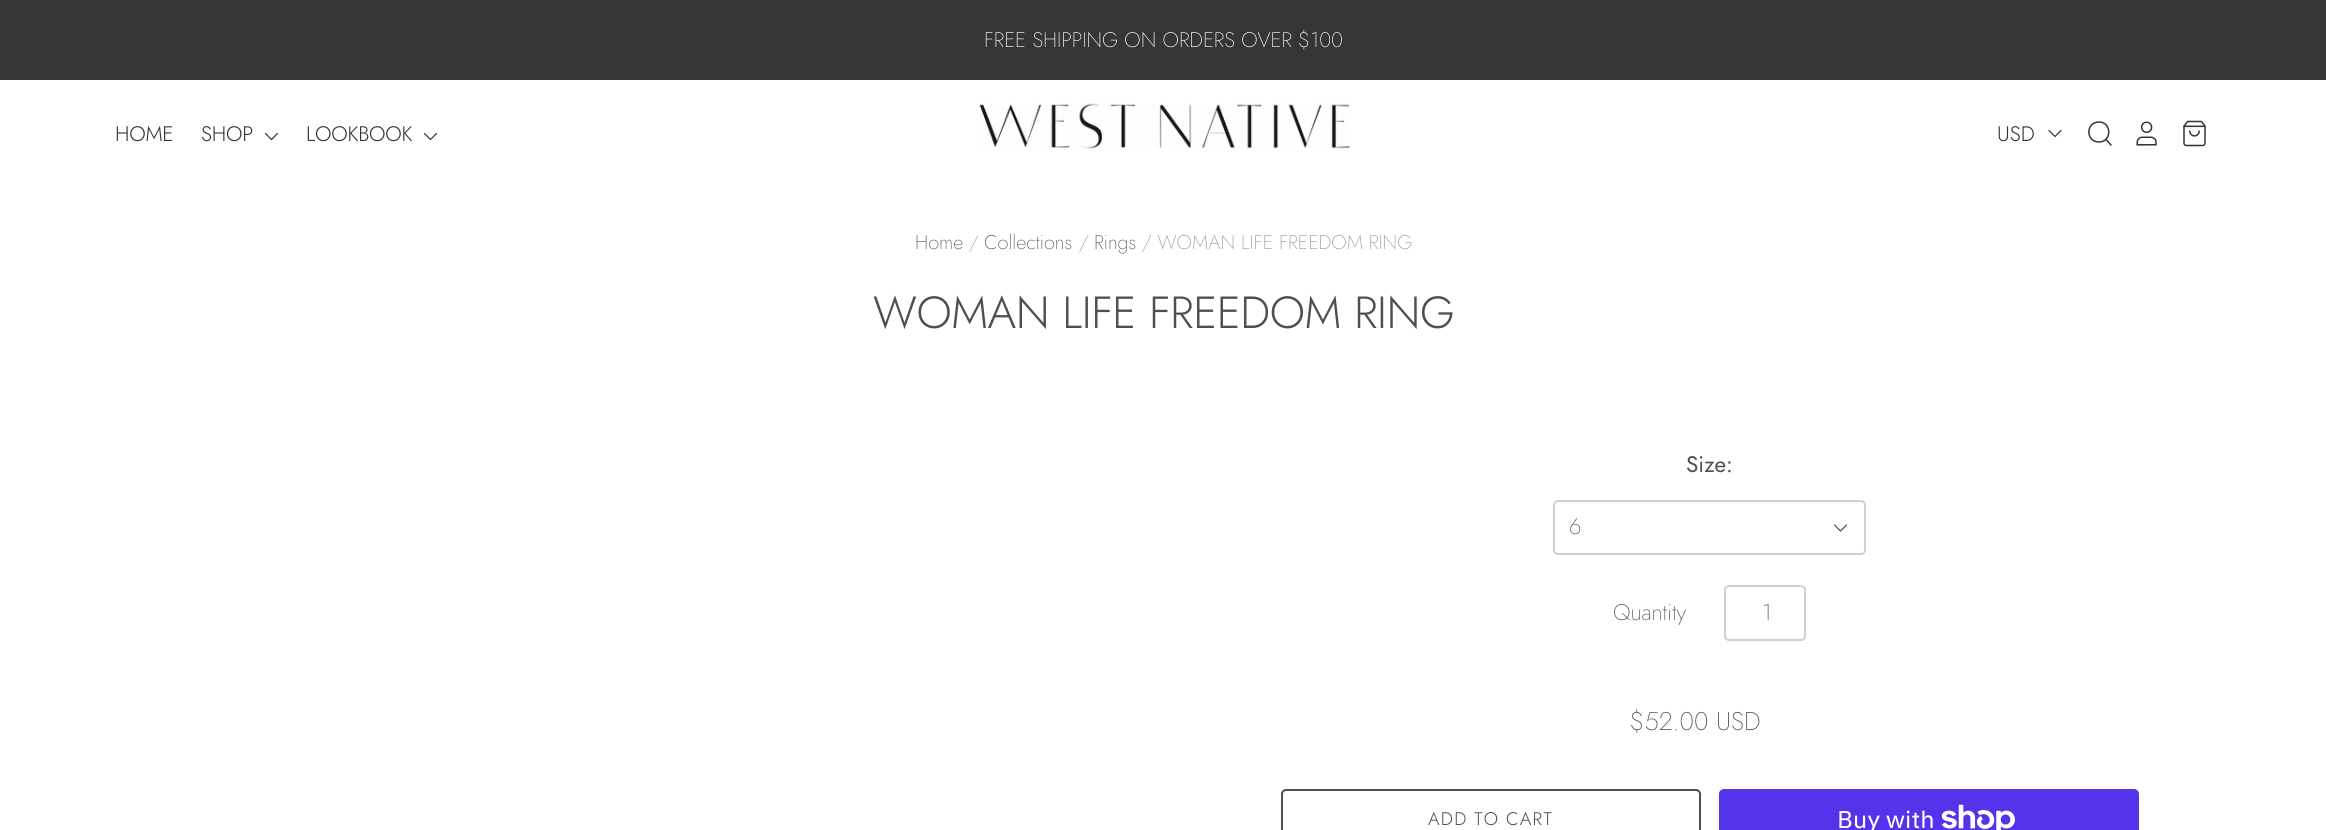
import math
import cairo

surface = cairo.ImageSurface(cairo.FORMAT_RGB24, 2326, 830)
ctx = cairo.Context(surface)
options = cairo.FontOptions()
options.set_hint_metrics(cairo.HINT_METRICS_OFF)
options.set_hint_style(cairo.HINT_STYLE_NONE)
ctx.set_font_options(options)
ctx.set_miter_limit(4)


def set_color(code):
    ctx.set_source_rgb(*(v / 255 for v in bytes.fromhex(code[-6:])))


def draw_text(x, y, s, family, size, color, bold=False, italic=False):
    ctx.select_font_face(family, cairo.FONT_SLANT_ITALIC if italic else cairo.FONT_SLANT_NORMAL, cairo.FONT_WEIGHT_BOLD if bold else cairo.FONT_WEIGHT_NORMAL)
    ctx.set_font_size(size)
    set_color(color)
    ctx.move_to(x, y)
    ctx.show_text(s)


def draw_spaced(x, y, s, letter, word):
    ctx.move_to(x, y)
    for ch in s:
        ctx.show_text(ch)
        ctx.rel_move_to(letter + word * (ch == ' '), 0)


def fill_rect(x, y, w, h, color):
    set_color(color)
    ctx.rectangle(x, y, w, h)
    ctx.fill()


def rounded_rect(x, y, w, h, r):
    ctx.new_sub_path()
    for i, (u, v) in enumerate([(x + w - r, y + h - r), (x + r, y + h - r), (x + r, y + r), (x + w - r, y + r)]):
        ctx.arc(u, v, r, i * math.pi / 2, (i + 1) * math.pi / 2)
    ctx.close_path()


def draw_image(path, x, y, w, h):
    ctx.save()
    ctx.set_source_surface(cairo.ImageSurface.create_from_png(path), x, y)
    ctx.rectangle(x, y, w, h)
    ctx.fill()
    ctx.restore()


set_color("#ffffff")
ctx.paint()
fill_rect(0, 0, 2326, 80, "#353535")
draw_text(984, 47, "FREE SHIPPING ON ORDERS OVER $100", "Jost ExtraLight", 21, "#ffffff")
ctx.select_font_face("Jost Light")
set_color("#333333")
draw_spaced(115, 141, "HOME", -0.25, 0)
draw_spaced(201, 141, "SHOP", -0.25, 0)
ctx.new_path()
ctx.move_to(265.5, 133.5)
ctx.line_to(271.5, 139.5)
ctx.line_to(277.5, 133.5)
ctx.set_line_width(1.2)
ctx.set_line_cap(cairo.LINE_CAP_ROUND)
ctx.set_line_join(cairo.LINE_JOIN_ROUND)
ctx.stroke()
draw_spaced(306, 141, "LOOKBOOK", -0.25, 0)
ctx.new_path()
ctx.move_to(424.5, 133.5)
ctx.line_to(430.5, 139.5)
ctx.line_to(436.5, 133.5)
ctx.stroke()
draw_image("assets/img1.png", 977, 103, 373, 46)
draw_text(1997, 141, "USD", "Jost Light", 21, "#333333")
ctx.new_path()
ctx.move_to(2049, 130.5)
ctx.line_to(2055, 136.5)
ctx.line_to(2061, 130.5)
ctx.stroke()
ctx.new_path()
ctx.move_to(2099, 122)
ctx.curve_to(2085.5, 122, 2085.5, 142, 2099, 142)
ctx.curve_to(2112, 142, 2112, 122, 2099, 122)
ctx.close_path()
ctx.move_to(2111, 145)
ctx.line_to(2106, 139.5)
ctx.close_path()
ctx.set_line_width(1.5)
ctx.stroke()
draw_image("assets/img2.png", 2136, 121, 21, 25)
draw_image("assets/img3.png", 2183, 120, 23, 27)
draw_text(915, 249, "Home", "Jost ExtraLight", 19.75, "#4f4f4f")
draw_text(969, 249, "/", "Jost ExtraLight", 19.75, "#959595")
draw_text(984, 249, "Collections", "Jost ExtraLight", 19.75, "#4f4f4f")
draw_text(1079, 249, "/", "Jost ExtraLight", 19.75, "#959595")
draw_text(1094, 249, "Rings", "Jost ExtraLight", 19.75, "#4f4f4f")
draw_text(1142, 249, "/ WOMAN LIFE FREEDOM RING", "Jost ExtraLight", 19.75, "#959595")
ctx.select_font_face("Jost Light")
ctx.set_font_size(45)
set_color("#4f4f4f")
draw_spaced(873, 328, "WOMAN LIFE FREEDOM RING", -0.45, 0)
draw_text(1686, 472, "Size:", "Jost", 22.5, "#4f4f4f")
rounded_rect(1554, 501, 311, 53, 4)
set_color("#d0d0d0")
ctx.set_line_width(2)
ctx.set_line_cap(cairo.LINE_CAP_BUTT)
ctx.set_line_join(cairo.LINE_JOIN_MITER)
ctx.stroke()
draw_text(1569, 534, "6", "Jost ExtraLight", 22.5, "#4f4f4f")
ctx.new_path()
ctx.move_to(1834.5, 525)
ctx.line_to(1840.5, 531)
ctx.line_to(1846.5, 525)
ctx.set_line_width(1.2)
ctx.set_line_cap(cairo.LINE_CAP_ROUND)
ctx.set_line_join(cairo.LINE_JOIN_ROUND)
ctx.stroke()
draw_text(1613, 620, "Quantity", "Jost ExtraLight", 22.5, "#4f4f4f")
rounded_rect(1725, 586, 80, 54, 4)
set_color("#d0d0d0")
ctx.set_line_width(2)
ctx.set_line_cap(cairo.LINE_CAP_BUTT)
ctx.set_line_join(cairo.LINE_JOIN_MITER)
ctx.stroke()
draw_text(1762, 620, "1", "Jost ExtraLight", 22.5, "#4f4f4f")
draw_text(1630, 730, "$52.00 USD", "Jost ExtraLight", 25.5, "#4f4f4f")
rounded_rect(1282, 790, 418, 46, 4)
ctx.stroke()
ctx.select_font_face("Jost Light")
ctx.set_font_size(18.25)
draw_spaced(1428, 825, "ADD TO CART", 1.25, 0)
set_color("#5433eb")
rounded_rect(1719, 789, 420, 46, 5)
ctx.fill()
draw_text(1837, 828, "Buy with", "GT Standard", 24, "#ffffff")
draw_image("assets/img4.png", 1941, 804, 74, 26)
surface.write_to_png("output.png")
